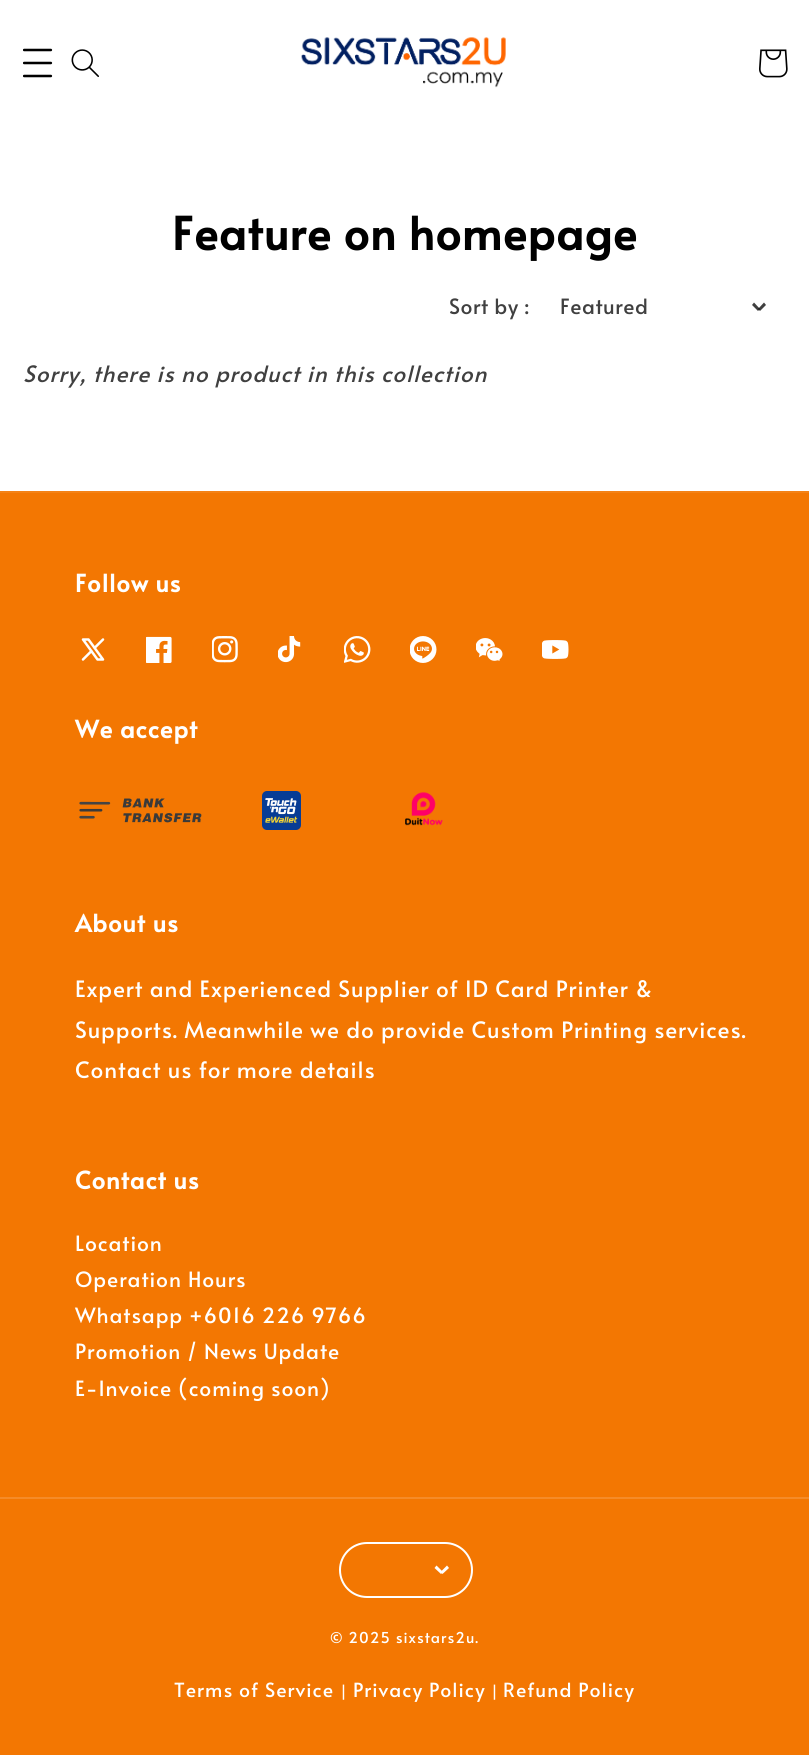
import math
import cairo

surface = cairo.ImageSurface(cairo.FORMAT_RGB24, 809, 1755)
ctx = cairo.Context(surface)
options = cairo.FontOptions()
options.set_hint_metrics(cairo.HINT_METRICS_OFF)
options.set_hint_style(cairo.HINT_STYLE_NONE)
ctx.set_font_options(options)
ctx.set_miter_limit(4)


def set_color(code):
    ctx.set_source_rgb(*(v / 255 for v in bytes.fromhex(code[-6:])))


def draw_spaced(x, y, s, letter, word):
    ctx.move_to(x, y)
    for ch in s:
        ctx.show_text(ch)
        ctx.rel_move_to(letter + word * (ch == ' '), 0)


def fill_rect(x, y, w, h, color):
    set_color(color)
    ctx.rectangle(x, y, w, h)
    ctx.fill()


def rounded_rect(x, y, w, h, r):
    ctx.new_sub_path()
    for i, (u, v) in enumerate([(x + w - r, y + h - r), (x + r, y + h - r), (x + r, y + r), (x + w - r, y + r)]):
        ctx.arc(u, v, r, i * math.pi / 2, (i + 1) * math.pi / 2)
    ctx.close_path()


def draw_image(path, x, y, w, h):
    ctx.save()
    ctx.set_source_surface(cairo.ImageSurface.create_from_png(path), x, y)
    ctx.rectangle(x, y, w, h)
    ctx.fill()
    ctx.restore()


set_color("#ffffff")
ctx.paint()
draw_image("assets/img1.png", 23, 48, 30, 30)
draw_image("assets/img2.png", 71, 49, 28, 28)
draw_image("assets/img3.png", 301, 37, 205, 51)
draw_image("assets/img4.png", 759, 49, 29, 29)
ctx.select_font_face("Alata", cairo.FONT_SLANT_NORMAL, cairo.FONT_WEIGHT_BOLD)
ctx.set_font_size(45)
set_color("#000000")
draw_spaced(172, 250, "Feature on homepage", 0.9, 0)
ctx.select_font_face("Alata")
ctx.set_font_size(21)
set_color("#404040")
draw_spaced(449, 314, "Sort by :", 0.5, 0)
draw_spaced(560, 314, "Featured", 0.5, 0)
ctx.new_path()
ctx.move_to(764, 302.5)
ctx.line_to(766, 305)
ctx.line_to(760, 311)
ctx.line_to(758, 309)
ctx.close_path()
ctx.fill()
ctx.set_source_rgba(0, 0, 0, 0.75)
ctx.new_path()
ctx.move_to(752, 305)
ctx.line_to(754, 302.5)
ctx.line_to(760, 309)
ctx.line_to(758, 311)
ctx.close_path()
ctx.fill()
ctx.select_font_face("Alata", cairo.FONT_SLANT_ITALIC)
ctx.set_font_size(22.5)
set_color("#404040")
draw_spaced(23, 382, "Sorry, there is no product in this collection", 0.9, 0)
fill_rect(0, 493, 809, 1262, "#f37702")
fill_rect(0, 491, 809, 2, "#f48216")
ctx.select_font_face("Alata", cairo.FONT_SLANT_NORMAL, cairo.FONT_WEIGHT_BOLD)
ctx.set_font_size(24)
set_color("#ffffff")
draw_spaced(75, 592, "Follow us", 0.9, 0)
ctx.new_path()
ctx.move_to(83, 639.5)
ctx.line_to(97.5, 659.5)
ctx.line_to(103, 659.5)
ctx.line_to(88.5, 639.5)
ctx.close_path()
ctx.move_to(83, 659.5)
ctx.line_to(91.5, 651)
ctx.move_to(94.5, 648)
ctx.line_to(103, 639.5)
ctx.set_line_width(2.5)
ctx.set_line_cap(cairo.LINE_CAP_ROUND)
ctx.set_line_join(cairo.LINE_JOIN_ROUND)
ctx.stroke()
draw_image("assets/img5.png", 146, 636, 26, 27)
draw_image("assets/img6.png", 212, 636, 26, 27)
draw_image("assets/img7.png", 278, 636, 23, 27)
draw_image("assets/img8.png", 344, 636, 27, 27)
draw_image("assets/img9.png", 410, 636, 27, 27)
draw_image("assets/img10.png", 476, 638, 27, 23)
draw_image("assets/img11.png", 542, 640, 27, 19)
draw_spaced(75, 738, "We accept", 0.9, 0)
draw_image("assets/img12.png", 79, 798, 123, 25)
draw_image("assets/img13.png", 262, 791, 39, 39)
draw_image("assets/img14.png", 405, 792, 38, 34)
draw_spaced(75, 932, "About us", 0.9, 0)
ctx.select_font_face("Alata")
ctx.set_font_size(22.5)
draw_spaced(75, 997, "Expert and Experienced Supplier of ID Card Printer &", 0.9, 0)
draw_spaced(75, 1038, "Supports. Meanwhile we do provide Custom Printing services.", 0.9, 0)
draw_spaced(75, 1078, "Contact us for more details", 0.9, 0)
ctx.select_font_face("Alata", cairo.FONT_SLANT_NORMAL, cairo.FONT_WEIGHT_BOLD)
ctx.set_font_size(24)
draw_spaced(75, 1189, "Contact us", 0.9, 0)
ctx.select_font_face("Alata")
ctx.set_font_size(21)
draw_spaced(75, 1251, "Location", 0.9, 0)
draw_spaced(75, 1287, "Operation Hours", 0.9, 0)
draw_spaced(75, 1323, "Whatsapp +6016 226 9766", 0.9, 0)
draw_spaced(75, 1359, "Promotion / News Update", 0.9, 0)
draw_spaced(75, 1396, "E-Invoice (coming soon)", 0.9, 0)
fill_rect(0, 1497, 809, 2, "#f58b28")
rounded_rect(340, 1543, 132, 54, 27)
set_color("#ffffff")
ctx.set_line_width(2)
ctx.set_line_cap(cairo.LINE_CAP_BUTT)
ctx.set_line_join(cairo.LINE_JOIN_MITER)
ctx.stroke()
ctx.new_path()
ctx.move_to(447, 1565.5)
ctx.line_to(449, 1568)
ctx.line_to(442.5, 1574)
ctx.line_to(440.5, 1572)
ctx.close_path()
ctx.fill()
ctx.new_path()
ctx.move_to(434.5, 1568)
ctx.line_to(436.5, 1565.5)
ctx.line_to(443, 1572)
ctx.line_to(441, 1574)
ctx.close_path()
ctx.fill()
ctx.set_font_size(15)
draw_spaced(330, 1643, "© 2025 sixstars2u.", 1, 0)
ctx.set_font_size(19.5)
draw_spaced(174, 1697, "Terms of Service", 1, 0)
ctx.set_font_size(15)
draw_spaced(340, 1697, "|", 1, 0)
ctx.set_font_size(19.5)
draw_spaced(353, 1697, "Privacy Policy", 1, 0)
ctx.set_font_size(15)
draw_spaced(491, 1697, "|", 1, 0)
ctx.set_font_size(19.5)
draw_spaced(503, 1697, "Refund Policy", 1, 0)
surface.write_to_png("output.png")
